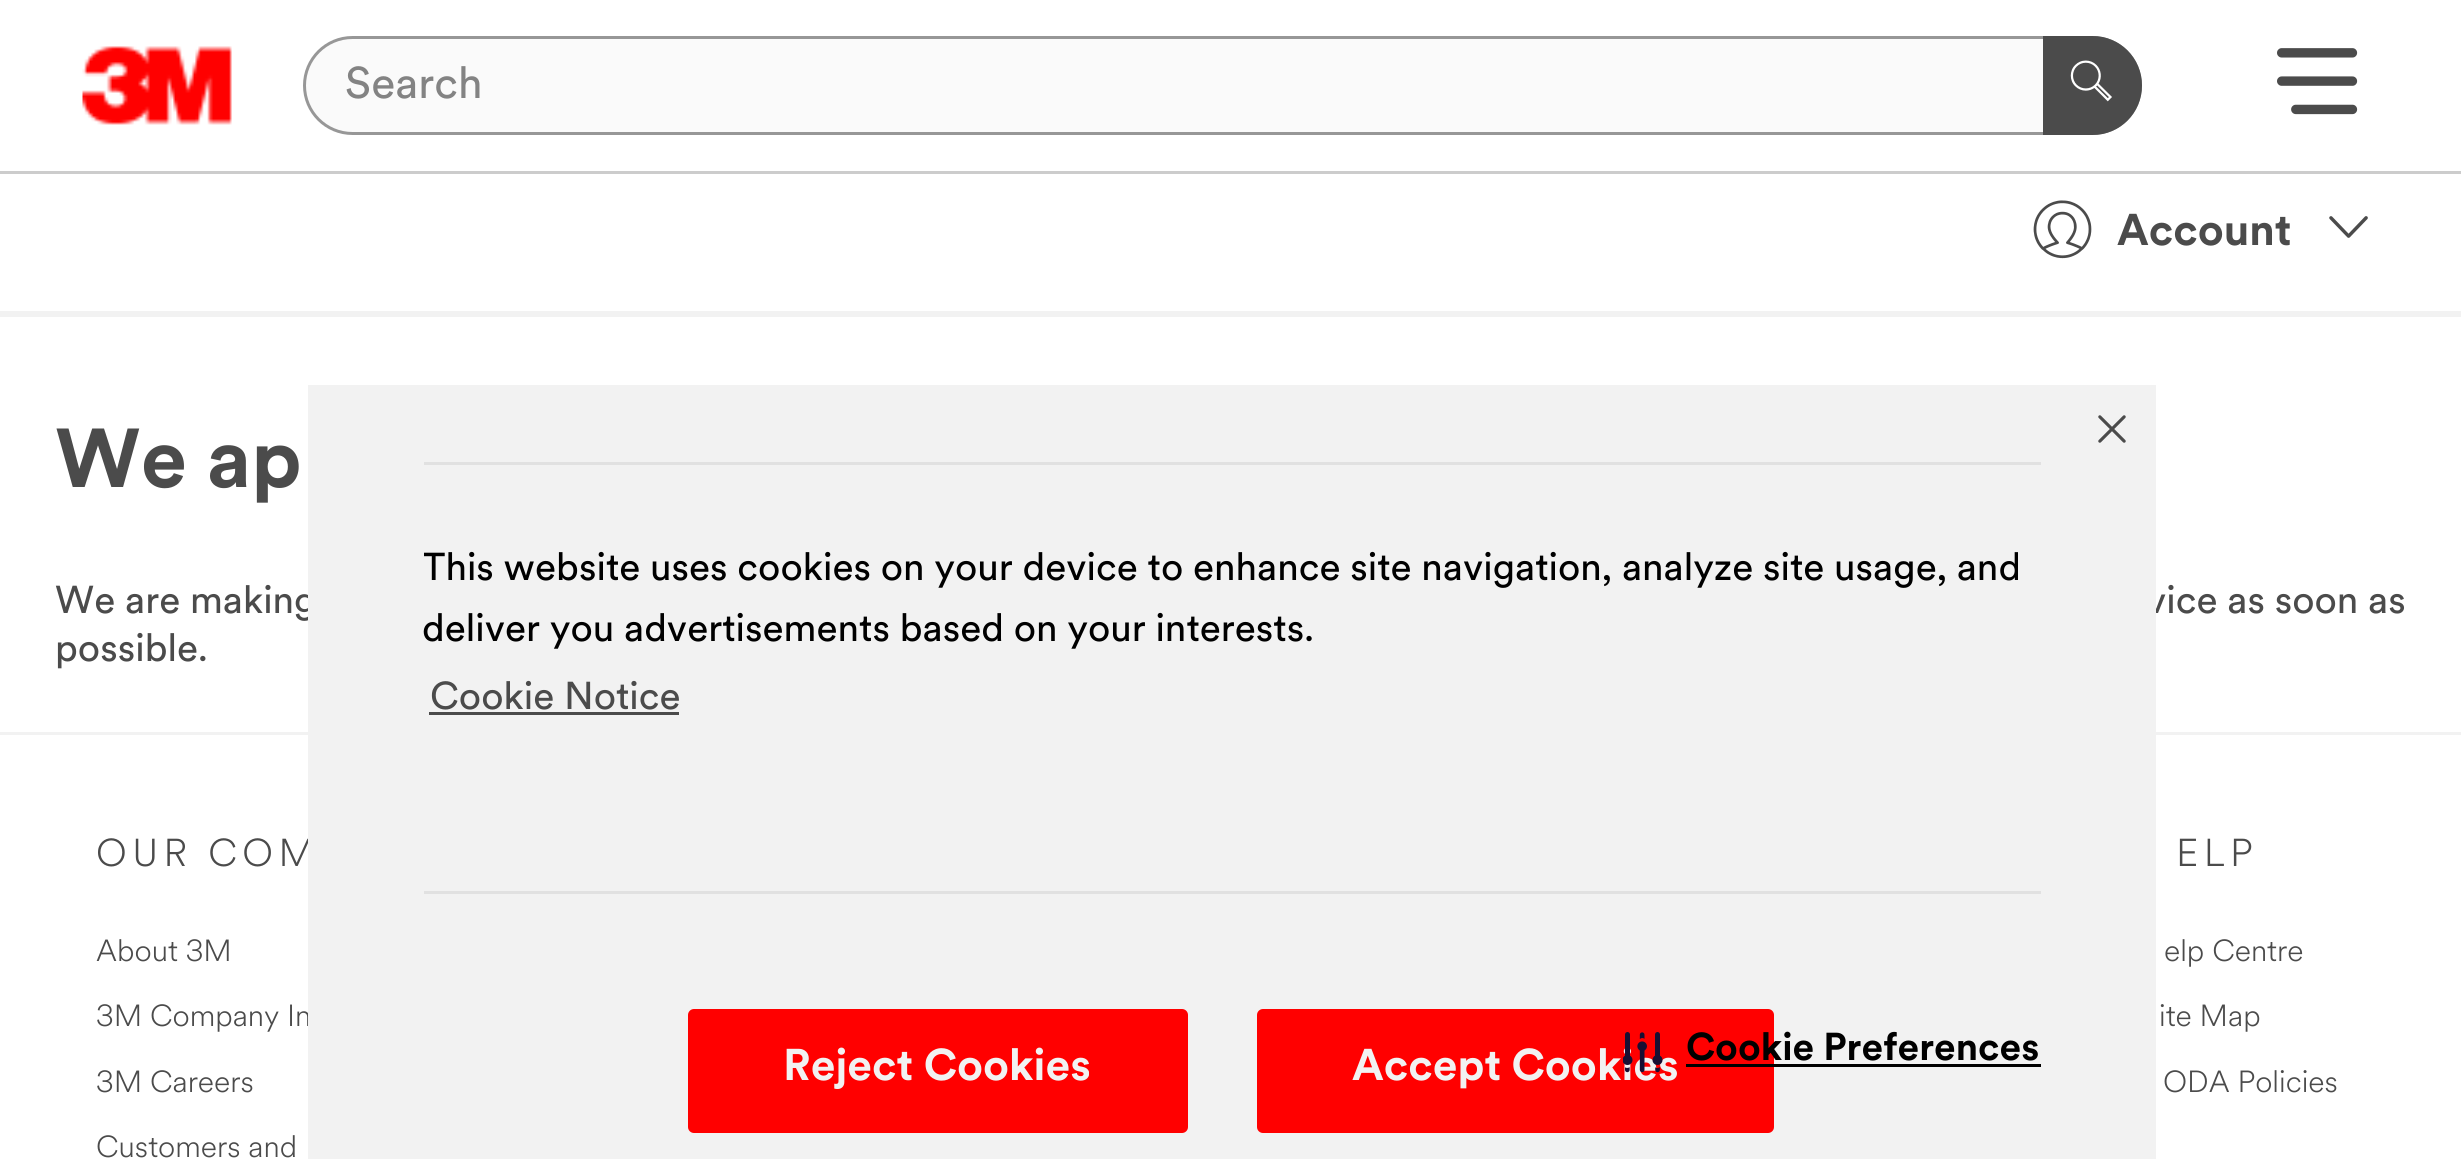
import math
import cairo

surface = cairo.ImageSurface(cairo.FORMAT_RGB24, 2461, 1159)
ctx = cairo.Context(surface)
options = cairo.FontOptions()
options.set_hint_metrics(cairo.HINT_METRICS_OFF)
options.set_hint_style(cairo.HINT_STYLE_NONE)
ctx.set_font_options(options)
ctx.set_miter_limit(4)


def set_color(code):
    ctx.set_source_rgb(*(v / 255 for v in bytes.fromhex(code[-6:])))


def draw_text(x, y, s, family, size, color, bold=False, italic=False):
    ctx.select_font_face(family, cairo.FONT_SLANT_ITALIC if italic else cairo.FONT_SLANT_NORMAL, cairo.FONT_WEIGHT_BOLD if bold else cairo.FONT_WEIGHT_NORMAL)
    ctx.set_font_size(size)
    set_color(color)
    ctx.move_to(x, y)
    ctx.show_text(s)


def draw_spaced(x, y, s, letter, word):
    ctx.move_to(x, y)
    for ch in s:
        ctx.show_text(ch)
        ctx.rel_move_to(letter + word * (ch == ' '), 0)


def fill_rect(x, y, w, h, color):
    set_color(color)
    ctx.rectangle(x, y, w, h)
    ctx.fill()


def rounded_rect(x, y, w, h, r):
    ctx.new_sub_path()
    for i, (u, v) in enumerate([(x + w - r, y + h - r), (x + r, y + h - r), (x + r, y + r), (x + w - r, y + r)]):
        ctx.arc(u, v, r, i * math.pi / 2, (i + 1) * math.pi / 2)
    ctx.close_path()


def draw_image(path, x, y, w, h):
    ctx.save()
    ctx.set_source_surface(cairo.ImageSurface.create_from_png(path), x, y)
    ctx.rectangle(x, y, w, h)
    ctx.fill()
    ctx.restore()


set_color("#ffffff")
ctx.paint()
fill_rect(0, 311, 2461, 6, "#f2f2f2")
draw_image("assets/img1.png", 82, 46, 150, 79)
set_color("#fafafa")
rounded_rect(304.5, 37.5, 1836, 96, 48)
ctx.fill_preserve()
set_color("#979797")
ctx.set_line_width(3)
ctx.stroke()
draw_text(345, 98, "Search", "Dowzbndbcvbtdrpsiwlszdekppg", 44, "#838383")
set_color("#4b4b4b")
ctx.new_path()
ctx.move_to(2043, 36)
ctx.line_to(2092.5, 36)
ctx.curve_to(2120, 36, 2142, 58, 2142, 85.5)
ctx.curve_to(2142, 113, 2120, 135, 2092.5, 135)
ctx.line_to(2043, 135)
ctx.close_path()
ctx.fill()
draw_image("assets/img2.png", 2070, 60, 42, 42)
draw_image("assets/img3.png", 2277, 48, 81, 67)
fill_rect(0, 171, 2461, 3, "#cccccc")
draw_image("assets/img4.png", 2033, 200, 59, 59)
draw_text(2117, 245, "Account", "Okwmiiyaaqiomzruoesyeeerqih", 44, "#4b4b4b", bold=True)
draw_image("assets/img5.png", 2329, 216, 39, 22)
draw_text(55, 487, "We ap", "Okwmiiyaaqiomzruoesyeeerqih", 82.5, "#4b4b4b", bold=True)
draw_text(55, 613, "We are making", "Dowzbndbcvbtdrpsiwlszdekppg", 38.5, "#4b4b4b")
draw_text(2146, 613, "vice as soon as", "Dowzbndbcvbtdrpsiwlszdekppg", 38.5, "#4b4b4b")
draw_text(55, 661, "possible.", "Dowzbndbcvbtdrpsiwlszdekppg", 38.5, "#4b4b4b")
fill_rect(0, 732, 2461, 3, "#f2f2f2")
ctx.select_font_face("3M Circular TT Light")
set_color("#4b4b4b")
draw_spaced(96, 866, "OUR COM", 5.5, 0)
draw_text(96, 961, "About 3M", "3M Circular TT Light", 30.25, "#4b4b4b")
draw_text(96, 1026, "3M Company In", "3M Circular TT Light", 30.25, "#4b4b4b")
draw_text(96, 1092, "3M Careers", "3M Circular TT Light", 30.25, "#4b4b4b")
draw_text(96, 1157, "Customers and", "3M Circular TT Light", 30.25, "#4b4b4b")
ctx.set_font_size(38.5)
draw_spaced(2176, 866, "ELP", 5.5, 0)
draw_text(2164, 961, "elp Centre", "3M Circular TT Light", 30.25, "#4b4b4b")
draw_text(2159, 1026, "ite Map", "3M Circular TT Light", 30.25, "#4b4b4b")
draw_text(2163, 1092, "ODA Policies", "3M Circular TT Light", 30.25, "#4b4b4b")
fill_rect(308, 385, 1848, 774, "#f2f2f2")
fill_rect(424, 462, 1617, 3, "#e1e1e1")
fill_rect(424, 891, 1617, 3, "#e1e1e1")
ctx.save()
ctx.rectangle(424, 465, 1617, 426)
ctx.clip()
draw_text(422, 580, "This website uses cookies on your device to enhance site navigation, analyze site usage, and", "Dowzbndbcvbtdrpsiwlszdekppg", 38.5, "#000000")
ctx.restore()
draw_text(422, 641, "deliver you advertisements based on your interests.", "Dowzbndbcvbtdrpsiwlszdekppg", 38.5, "#000000")
draw_text(430, 709, "Cookie Notice", "Dowzbndbcvbtdrpsiwlszdekppg", 38.5, "#4b4b4b")
fill_rect(429, 712, 250, 3, "#4b4b4b")
draw_image("assets/img6.png", 2098, 415, 28, 28)
set_color("#ff0000")
rounded_rect(688, 1009, 500, 124, 6)
ctx.fill()
draw_text(783, 1080, "Reject Cookies", "Okwmiiyaaqiomzruoesyeeerqih", 44, "#f2f2f2", bold=True)
set_color("#ff0000")
rounded_rect(1257, 1009, 517, 124, 6)
ctx.fill()
draw_text(1352, 1080, "Accept Cookies", "Okwmiiyaaqiomzruoesyeeerqih", 44, "#f2f2f2", bold=True)
draw_image("assets/img7.png", 1623, 1032, 40, 41)
draw_text(1686, 1060, "Cookie Preferences", "Okwmiiyaaqiomzruoesyeeerqih", 38.5, "#000000", bold=True)
fill_rect(1686, 1064, 355, 3, "#000000")
surface.write_to_png("output.png")
